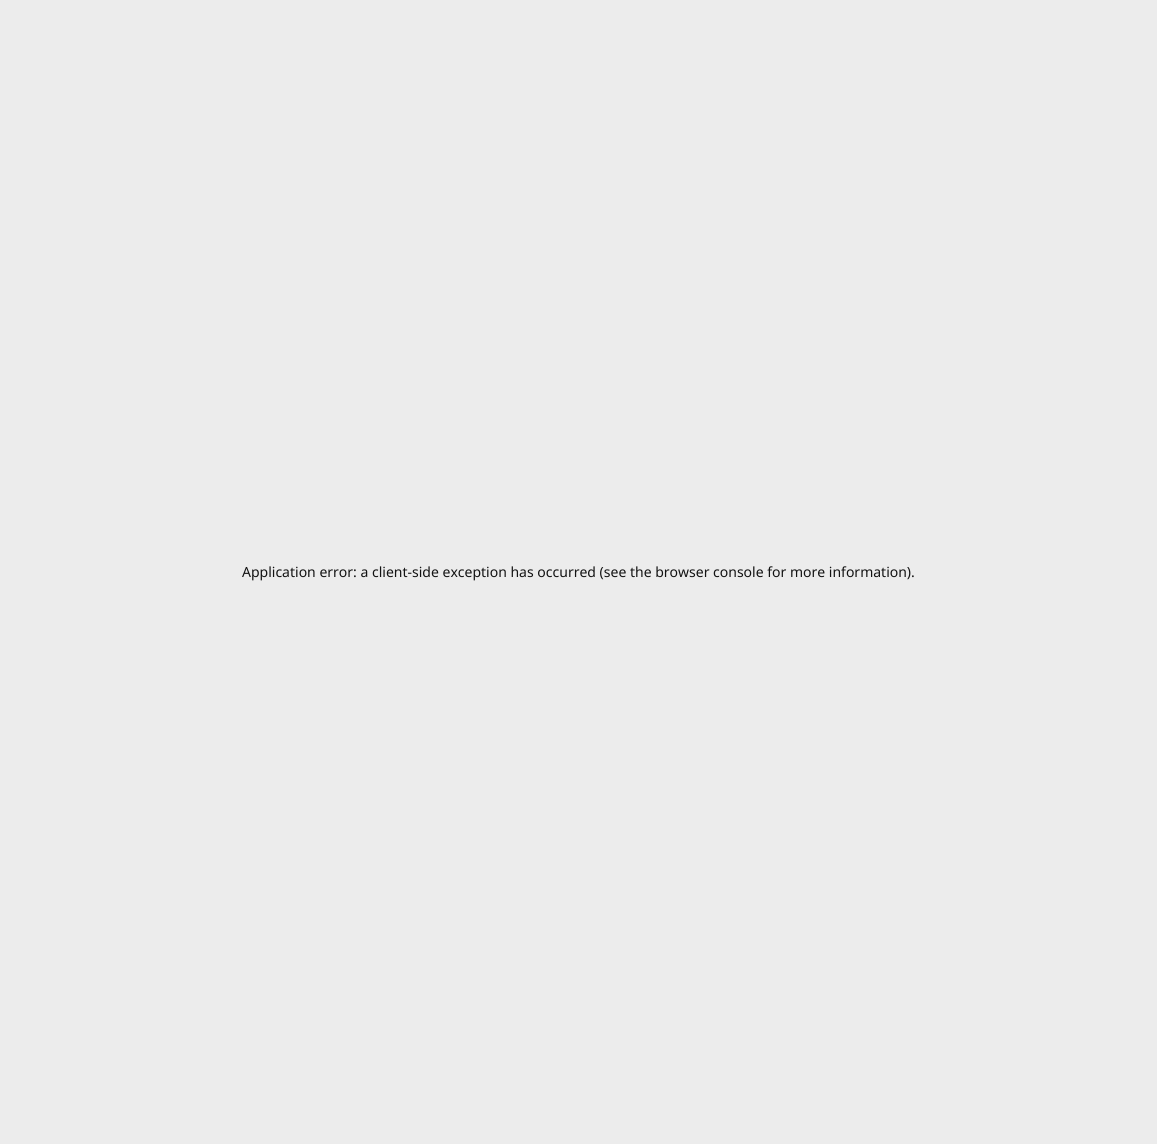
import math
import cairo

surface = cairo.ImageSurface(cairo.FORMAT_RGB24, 1157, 1144)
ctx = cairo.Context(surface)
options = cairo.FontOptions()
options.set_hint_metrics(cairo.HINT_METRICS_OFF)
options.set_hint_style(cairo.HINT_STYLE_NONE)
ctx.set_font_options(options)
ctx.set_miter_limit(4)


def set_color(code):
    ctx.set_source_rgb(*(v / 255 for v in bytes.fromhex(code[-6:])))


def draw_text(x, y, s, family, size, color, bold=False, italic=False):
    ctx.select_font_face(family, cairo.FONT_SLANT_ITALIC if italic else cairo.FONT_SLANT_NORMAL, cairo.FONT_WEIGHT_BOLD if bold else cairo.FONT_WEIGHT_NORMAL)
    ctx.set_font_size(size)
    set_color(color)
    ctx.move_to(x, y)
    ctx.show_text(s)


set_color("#ececec")
ctx.paint()
draw_text(242, 577, "Application error: a client-side exception has occurred (see the browser console for more information).", "Noto Sans", 14, "#131313")
surface.write_to_png("output.png")
